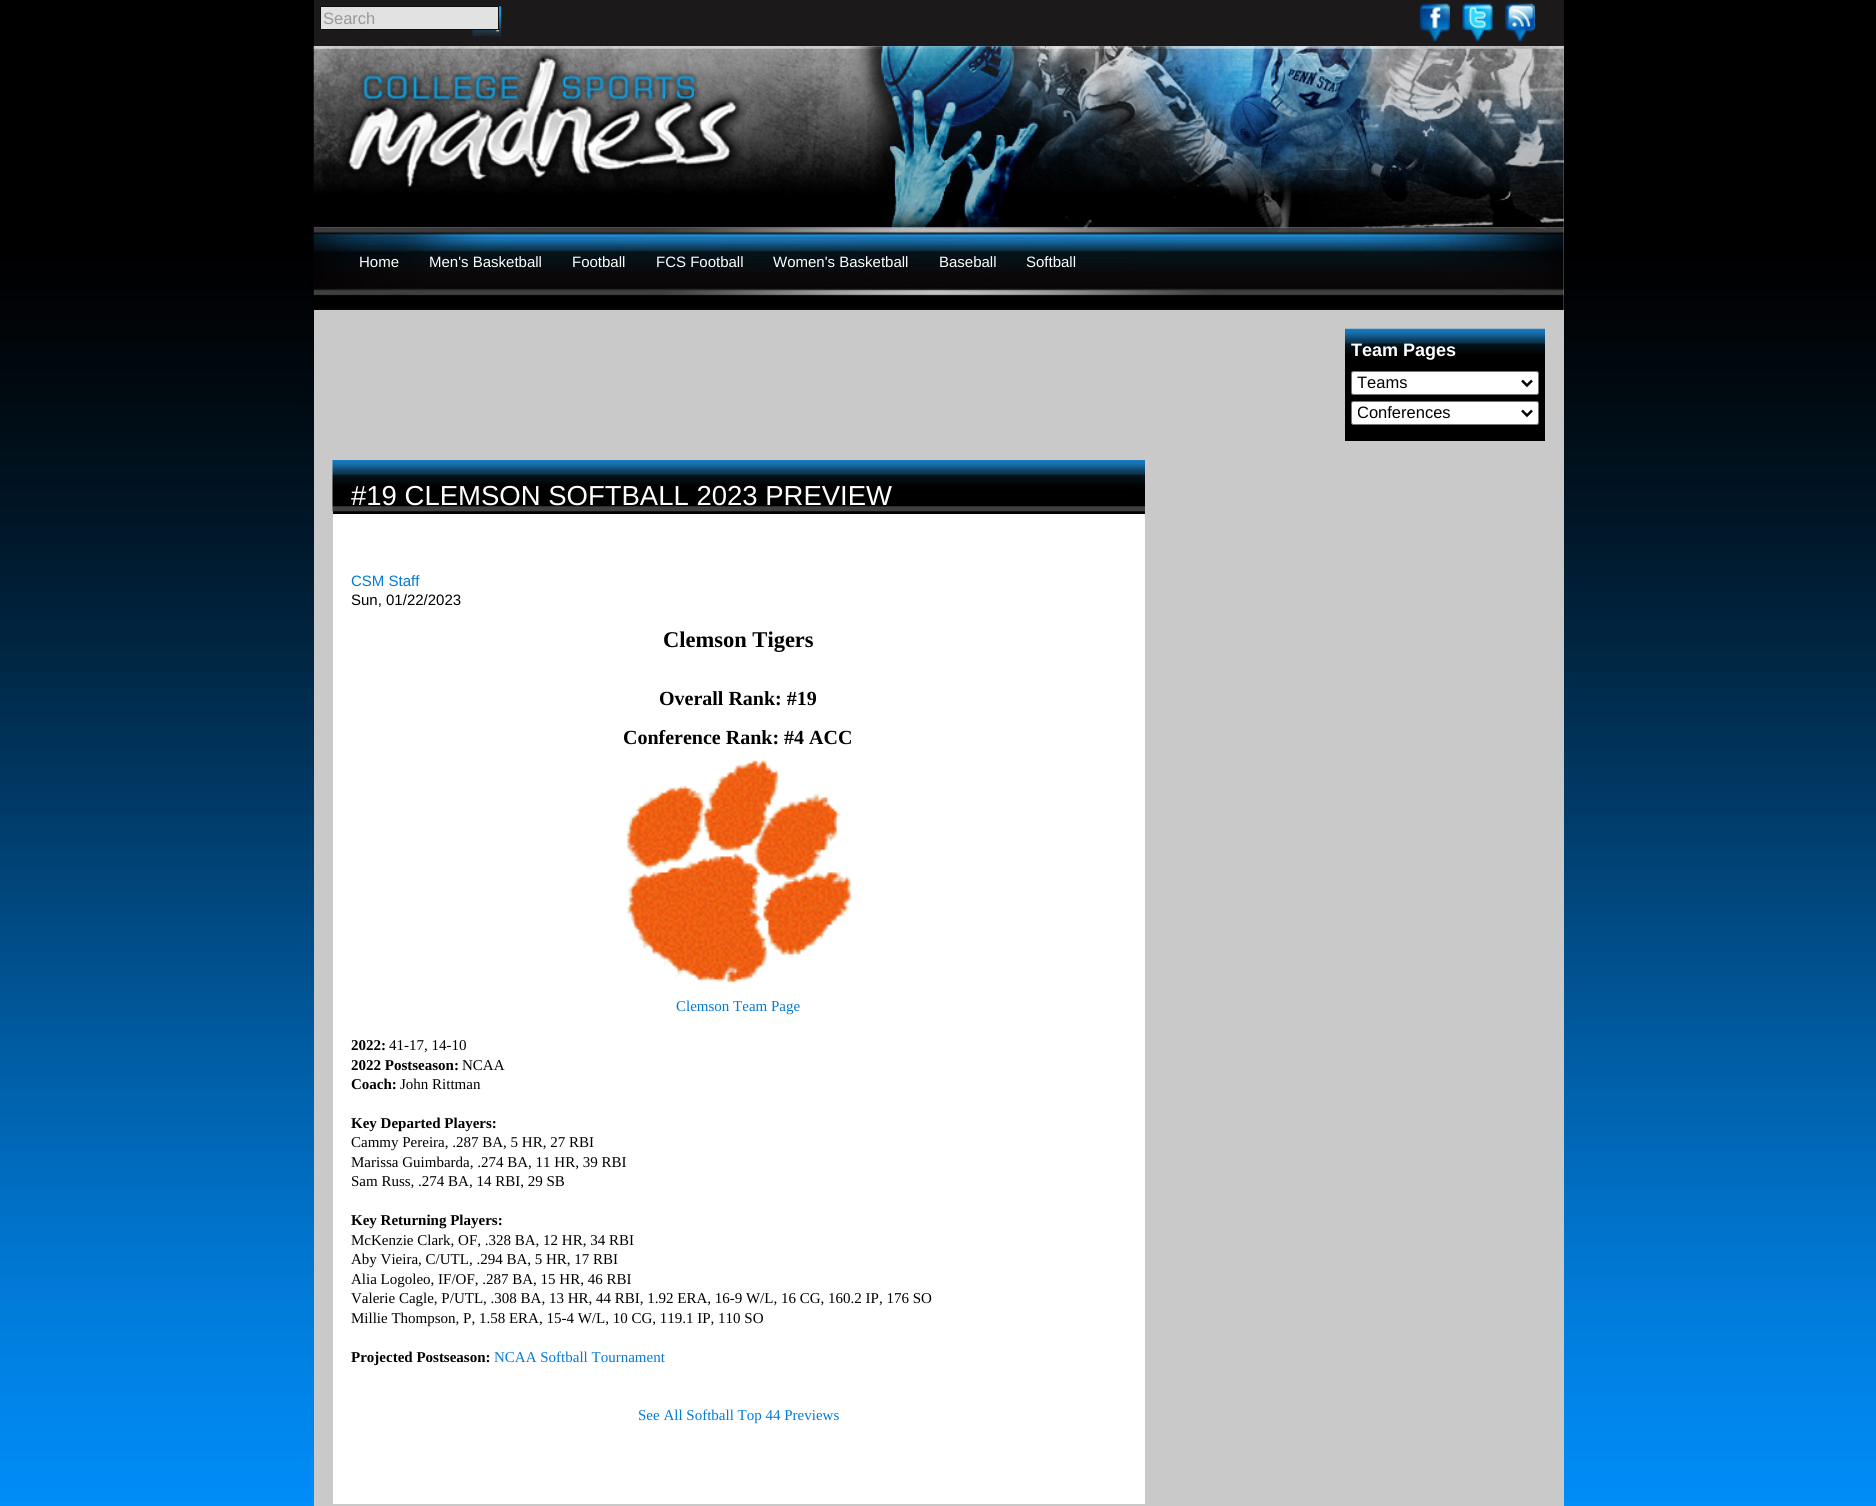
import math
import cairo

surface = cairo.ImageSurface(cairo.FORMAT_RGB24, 1876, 1506)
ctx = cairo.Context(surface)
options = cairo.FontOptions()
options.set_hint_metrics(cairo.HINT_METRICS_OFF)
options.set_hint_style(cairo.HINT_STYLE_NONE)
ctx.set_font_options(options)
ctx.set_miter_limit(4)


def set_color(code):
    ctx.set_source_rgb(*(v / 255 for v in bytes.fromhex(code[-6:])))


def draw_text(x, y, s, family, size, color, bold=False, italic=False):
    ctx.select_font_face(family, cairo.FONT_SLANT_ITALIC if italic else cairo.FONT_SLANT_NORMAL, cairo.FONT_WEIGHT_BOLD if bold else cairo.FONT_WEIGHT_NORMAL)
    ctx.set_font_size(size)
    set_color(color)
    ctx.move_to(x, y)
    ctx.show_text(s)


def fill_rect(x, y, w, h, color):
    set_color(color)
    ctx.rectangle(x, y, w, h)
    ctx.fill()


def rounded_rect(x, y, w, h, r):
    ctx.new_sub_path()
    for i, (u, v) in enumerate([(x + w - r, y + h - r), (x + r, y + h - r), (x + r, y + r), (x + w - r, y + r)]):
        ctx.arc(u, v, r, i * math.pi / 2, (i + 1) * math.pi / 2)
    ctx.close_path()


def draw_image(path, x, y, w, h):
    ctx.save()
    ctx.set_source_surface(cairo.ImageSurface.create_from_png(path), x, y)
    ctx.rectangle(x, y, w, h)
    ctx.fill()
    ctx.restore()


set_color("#008ffb")
ctx.paint()
draw_image("assets/img1.png", 0, 0, 1876, 1501)
fill_rect(314, 0, 1250, 46, "#1b191a")
draw_image("assets/img2.png", 472, 6, 30, 31)
set_color("#e2e2e2")
ctx.rectangle(320.5, 6.5, 178, 23)
ctx.fill_preserve()
set_color("#0e0e0e")
ctx.set_line_width(1)
ctx.stroke()
draw_text(323, 24, "Search", "Liberation Sans", 16.5, "#999999")
draw_image("assets/img3.png", 1420, 3, 30, 39)
draw_image("assets/img4.png", 1462, 2, 31, 40)
draw_image("assets/img5.png", 1505, 2, 30, 40)
fill_rect(314, 46, 1250, 1460, "#c9c9c9")
draw_image("assets/img6.png", 313, 46, 1251, 182)
draw_image("assets/img7.png", 341, 49, 406, 139)
draw_image("assets/img8.png", 313, 227, 1251, 83)
draw_text(359, 267, "Home", "Liberation Sans", 15, "#ffffff")
draw_text(429, 267, "Men's Basketball", "Liberation Sans", 15, "#ffffff")
draw_text(572, 267, "Football", "Liberation Sans", 15, "#ffffff")
draw_text(656, 267, "FCS Football", "Liberation Sans", 15, "#ffffff")
draw_text(773, 267, "Women's Basketball", "Liberation Sans", 15, "#ffffff")
draw_text(939, 267, "Baseball", "Liberation Sans", 15, "#ffffff")
draw_text(1026, 267, "Softball", "Liberation Sans", 15, "#ffffff")
fill_rect(1345, 354, 200, 87, "#000000")
draw_image("assets/img9.png", 1345, 328, 200, 26)
draw_text(1351, 356, "Team Pages", "Liberation Sans", 18, "#ffffff", bold=True)
rounded_rect(1351.5, 371.5, 187, 23, 2)
ctx.fill_preserve()
set_color("#767676")
ctx.stroke()
ctx.new_path()
ctx.move_to(1522, 380.5)
ctx.line_to(1527, 385.5)
ctx.line_to(1532, 380.5)
set_color("#000000")
ctx.set_line_width(2.5)
ctx.stroke()
draw_text(1357, 388, "Teams", "Liberation Sans", 16.5, "#000000")
set_color("#ffffff")
rounded_rect(1351.5, 401.5, 187, 23, 2)
ctx.fill_preserve()
set_color("#767676")
ctx.set_line_width(1)
ctx.stroke()
ctx.new_path()
ctx.move_to(1522, 410.5)
ctx.line_to(1527, 415.5)
ctx.line_to(1532, 410.5)
set_color("#000000")
ctx.set_line_width(2.5)
ctx.stroke()
ctx.save()
ctx.rectangle(1358, 403, 160, 21)
ctx.clip()
draw_text(1357, 418, "Conferences", "Liberation Sans", 16.5, "#000000")
ctx.restore()
fill_rect(333, 511, 812, 3, "#000000")
draw_image("assets/img10.png", 332, 460, 813, 52)
draw_text(351, 505, "#19 CLEMSON SOFTBALL 2023 PREVIEW", "Liberation Sans", 27.5, "#ffffff")
fill_rect(333, 514, 812, 990, "#ffffff")
draw_text(351, 586, "CSM Staff", "Liberation Sans", 15, "#037ad6")
draw_text(351, 605, "Sun, 01/22/2023", "Liberation Sans", 15, "#000000")
draw_text(663, 647, "Clemson Tigers", "Liberation Serif", 22.5, "#000000", bold=True)
draw_text(659, 705, "Overall Rank: #19", "Liberation Serif", 20, "#000000", bold=True)
draw_text(623, 744, "Conference Rank: #4 ACC", "Liberation Serif", 20, "#000000", bold=True)
draw_image("assets/img11.png", 626, 760, 225, 223)
draw_text(676, 1011, "Clemson Team Page", "Liberation Serif", 15, "#037ad6")
draw_text(351, 1050, "2022:", "Liberation Serif", 15, "#000000", bold=True)
draw_text(389, 1050, "41-17, 14-10", "Liberation Serif", 15, "#000000")
draw_text(351, 1070, "2022 Postseason:", "Liberation Serif", 15, "#000000", bold=True)
draw_text(462, 1070, "NCAA", "Liberation Serif", 15, "#000000")
draw_text(351, 1089, "Coach:", "Liberation Serif", 15, "#000000", bold=True)
draw_text(400, 1089, "John Rittman", "Liberation Serif", 15, "#000000")
draw_text(351, 1128, "Key Departed Players:", "Liberation Serif", 15, "#000000", bold=True)
draw_text(351, 1147, "Cammy Pereira, .287 BA, 5 HR, 27 RBI", "Liberation Serif", 15, "#000000")
draw_text(351, 1167, "Marissa Guimbarda, .274 BA, 11 HR, 39 RBI", "Liberation Serif", 15, "#000000")
draw_text(351, 1186, "Sam Russ, .274 BA, 14 RBI, 29 SB", "Liberation Serif", 15, "#000000")
draw_text(351, 1225, "Key Returning Players:", "Liberation Serif", 15, "#000000", bold=True)
draw_text(351, 1245, "McKenzie Clark, OF, .328 BA, 12 HR, 34 RBI", "Liberation Serif", 15, "#000000")
draw_text(351, 1264, "Aby Vieira, C/UTL, .294 BA, 5 HR, 17 RBI", "Liberation Serif", 15, "#000000")
draw_text(351, 1284, "Alia Logoleo, IF/OF, .287 BA, 15 HR, 46 RBI", "Liberation Serif", 15, "#000000")
draw_text(351, 1303, "Valerie Cagle, P/UTL, .308 BA, 13 HR, 44 RBI, 1.92 ERA, 16-9 W/L, 16 CG, 160.2 IP, 176 SO", "Liberation Serif", 15, "#000000")
draw_text(351, 1323, "Millie Thompson, P, 1.58 ERA, 15-4 W/L, 10 CG, 119.1 IP, 110 SO", "Liberation Serif", 15, "#000000")
draw_text(351, 1362, "Projected Postseason:", "Liberation Serif", 15, "#000000", bold=True)
draw_text(494, 1362, "NCAA Softball Tournament", "Liberation Serif", 15, "#037ad6")
draw_text(638, 1420, "See All Softball Top 44 Previews", "Liberation Serif", 15, "#037ad6")
surface.write_to_png("output.png")
